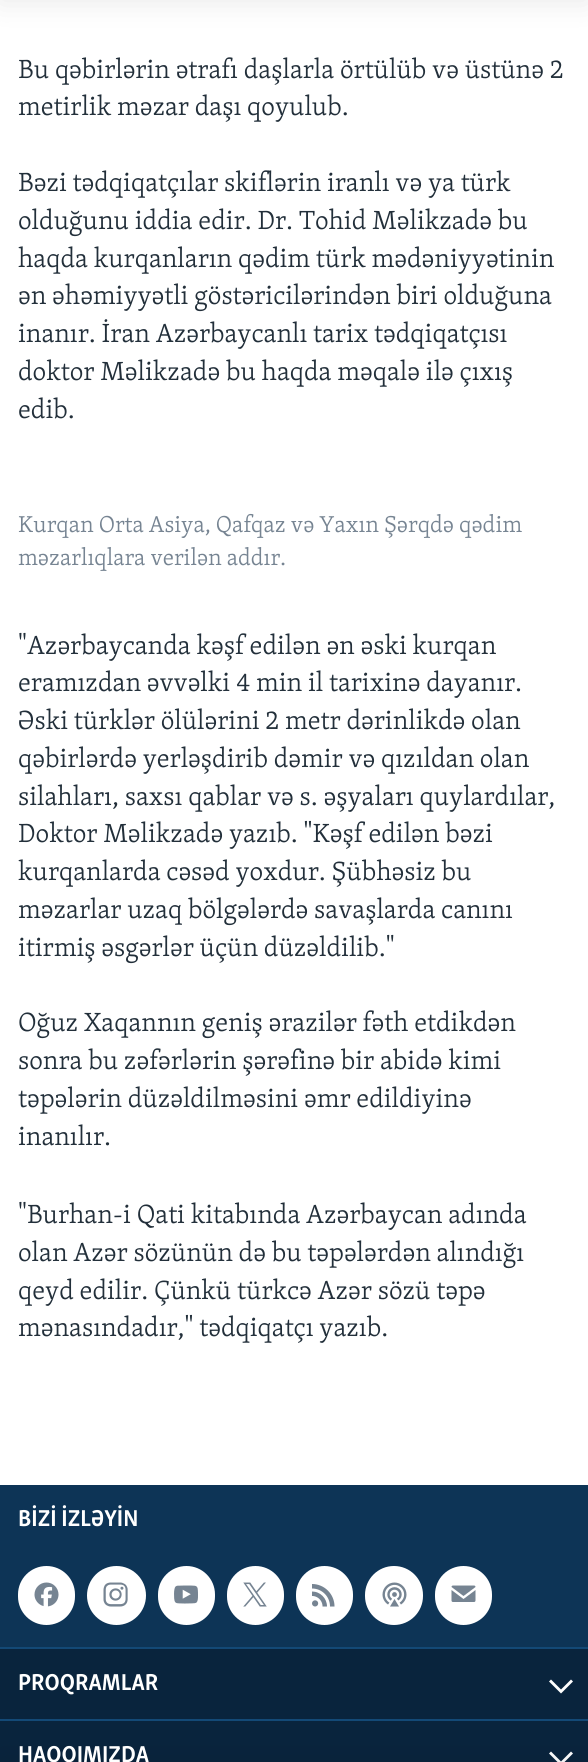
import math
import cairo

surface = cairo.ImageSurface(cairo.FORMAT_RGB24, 588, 1762)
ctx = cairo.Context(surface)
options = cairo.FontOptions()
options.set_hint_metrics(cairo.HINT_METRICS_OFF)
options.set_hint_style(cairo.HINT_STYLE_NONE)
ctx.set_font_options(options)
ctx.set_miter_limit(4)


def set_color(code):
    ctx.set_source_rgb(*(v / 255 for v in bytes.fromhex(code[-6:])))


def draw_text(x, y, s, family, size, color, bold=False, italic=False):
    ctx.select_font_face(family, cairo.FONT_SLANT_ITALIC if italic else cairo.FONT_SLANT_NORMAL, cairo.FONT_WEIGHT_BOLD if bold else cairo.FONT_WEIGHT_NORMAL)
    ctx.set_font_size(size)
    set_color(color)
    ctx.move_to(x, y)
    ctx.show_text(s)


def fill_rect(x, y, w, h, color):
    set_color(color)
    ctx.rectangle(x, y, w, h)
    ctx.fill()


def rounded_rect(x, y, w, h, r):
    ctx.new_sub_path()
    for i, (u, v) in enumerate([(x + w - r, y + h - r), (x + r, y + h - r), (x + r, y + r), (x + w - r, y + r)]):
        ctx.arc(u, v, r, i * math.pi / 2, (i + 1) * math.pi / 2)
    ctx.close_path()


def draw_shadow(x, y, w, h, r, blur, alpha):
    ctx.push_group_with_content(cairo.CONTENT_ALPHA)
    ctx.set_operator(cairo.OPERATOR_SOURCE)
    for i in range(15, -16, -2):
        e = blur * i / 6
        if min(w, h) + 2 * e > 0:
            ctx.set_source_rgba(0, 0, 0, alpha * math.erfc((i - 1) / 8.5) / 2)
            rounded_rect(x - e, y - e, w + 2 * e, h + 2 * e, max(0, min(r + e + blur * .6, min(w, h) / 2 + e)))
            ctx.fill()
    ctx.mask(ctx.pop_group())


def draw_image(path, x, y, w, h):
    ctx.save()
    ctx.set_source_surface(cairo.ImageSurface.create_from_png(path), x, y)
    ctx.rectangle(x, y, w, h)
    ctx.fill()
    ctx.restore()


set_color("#ffffff")
ctx.paint()
set_color("#000000")
draw_shadow(0, -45, 588, 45, 0, 15, 0.1)
fill_rect(0, 1649, 588, 70, "#09243d")
fill_rect(0, 1719, 588, 2, "#134976")
fill_rect(0, 1721, 588, 41, "#09243d")
set_color("#ffffff")
ctx.new_path()
ctx.move_to(549, 1753.5)
ctx.line_to(561, 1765.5)
ctx.line_to(573, 1753.5)
ctx.line_to(571, 1751.5)
ctx.line_to(561, 1761.5)
ctx.line_to(551, 1751.5)
ctx.close_path()
ctx.fill()
set_color("#000000")
draw_shadow(0, 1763, 588, 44, 0, 15, 0.1)
draw_text(18, 78, "Bu qəbirlərin ətrafı daşlarla örtülüb və üstünə 2", "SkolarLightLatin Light", 27, "#222f3a")
draw_text(18, 115, "metirlik məzar daşı qoyulub.", "SkolarLightLatin Light", 27, "#222f3a")
draw_text(18, 191, "Bəzi tədqiqatçılar skiflərin iranlı və ya türk", "SkolarLightLatin Light", 27, "#222f3a")
draw_text(18, 229, "olduğunu iddia edir. Dr. Tohid Məlikzadə bu", "SkolarLightLatin Light", 27, "#222f3a")
draw_text(18, 267, "haqda kurqanların qədim türk mədəniyyətinin", "SkolarLightLatin Light", 27, "#222f3a")
draw_text(18, 304, "ən əhəmiyyətli göstəricilərindən biri olduğuna", "SkolarLightLatin Light", 27, "#222f3a")
draw_text(18, 342, "inanır. İran Azərbaycanlı tarix tədqiqatçısı", "SkolarLightLatin Light", 27, "#222f3a")
draw_text(18, 380, "doktor Məlikzadə bu haqda məqalə ilə çıxış", "SkolarLightLatin Light", 27, "#222f3a")
draw_text(18, 418, "edib.", "SkolarLightLatin Light", 27, "#222f3a")
draw_text(18, 532, "Kurqan Orta Asiya, Qafqaz və Yaxın Şərqdə qədim", "SkolarLightLatin Light", 23.6, "#768492")
draw_text(18, 565, "məzarlıqlara verilən addır.", "SkolarLightLatin Light", 23.6, "#768492")
draw_text(18, 654, "\"Azərbaycanda kəşf edilən ən əski kurqan", "SkolarLightLatin Light", 27, "#222f3a")
draw_text(18, 691, "eramızdan əvvəlki 4 min il tarixinə dayanır.", "SkolarLightLatin Light", 27, "#222f3a")
draw_text(18, 729, "Əski türklər ölülərini 2 metr dərinlikdə olan", "SkolarLightLatin Light", 27, "#222f3a")
draw_text(18, 767, "qəbirlərdə yerləşdirib dəmir və qızıldan olan", "SkolarLightLatin Light", 27, "#222f3a")
draw_text(18, 805, "silahları, saxsı qablar və s. əşyaları quylardılar,", "SkolarLightLatin Light", 27, "#222f3a")
draw_text(18, 842, "Doktor Məlikzadə yazıb. \"Kəşf edilən bəzi", "SkolarLightLatin Light", 27, "#222f3a")
draw_text(18, 880, "kurqanlarda cəsəd yoxdur. Şübhəsiz bu", "SkolarLightLatin Light", 27, "#222f3a")
draw_text(18, 918, "məzarlar uzaq bölgələrdə savaşlarda canını", "SkolarLightLatin Light", 27, "#222f3a")
draw_text(18, 956, "itirmiş əsgərlər üçün düzəldilib.\"", "SkolarLightLatin Light", 27, "#222f3a")
draw_text(18, 1031, "Oğuz Xaqannın geniş ərazilər fəth etdikdən", "SkolarLightLatin Light", 27, "#222f3a")
draw_text(18, 1069, "sonra bu zəfərlərin şərəfinə bir abidə kimi", "SkolarLightLatin Light", 27, "#222f3a")
draw_text(18, 1107, "təpələrin düzəldilməsini əmr edildiyinə", "SkolarLightLatin Light", 27, "#222f3a")
draw_text(18, 1145, "inanılır.", "SkolarLightLatin Light", 27, "#222f3a")
draw_text(18, 1223, "\"Burhan-i Qati kitabında Azərbaycan adında", "SkolarLightLatin Light", 27, "#222f3a")
draw_text(18, 1261, "olan Azər sözünün də bu təpələrdən alındığı", "SkolarLightLatin Light", 27, "#222f3a")
draw_text(18, 1299, "qeyd edilir. Çünkü türkcə Azər sözü təpə", "SkolarLightLatin Light", 27, "#222f3a")
draw_text(18, 1336, "mənasındadır,\" tədqiqatçı yazıb.", "SkolarLightLatin Light", 27, "#222f3a")
fill_rect(0, 1485, 588, 162, "#0d3456")
draw_text(18, 1526, "BİZİ İZLƏYİN", "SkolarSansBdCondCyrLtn", 23.6, "#ffffff", bold=True)
rounded_rect(18, 1566, 57, 59, 28.5)
ctx.fill()
draw_image("assets/img1.png", 34, 1582, 25, 25)
ctx.arc(116.5, 1595.5, 29.5, 0, 2 * math.pi)
ctx.fill()
draw_image("assets/img2.png", 103, 1582, 25, 25)
rounded_rect(158, 1566, 57, 59, 28.5)
ctx.fill()
draw_image("assets/img3.png", 174, 1585, 24, 19)
rounded_rect(227, 1566, 57, 59, 28.5)
ctx.fill()
draw_image("assets/img4.png", 243, 1582, 24, 25)
rounded_rect(296, 1566, 57, 59, 28.5)
ctx.fill()
draw_image("assets/img5.png", 312, 1584, 23, 23)
rounded_rect(365, 1566, 58, 59, 29)
ctx.fill()
draw_image("assets/img6.png", 382, 1582, 25, 25)
rounded_rect(435, 1566, 57, 59, 28.5)
ctx.fill()
draw_image("assets/img7.png", 451, 1585, 25, 17)
fill_rect(0, 1647, 588, 2, "#134976")
draw_text(18, 1690, "PROQRAMLAR", "SkolarSansBdCondCyrLtn", 23.6, "#ffffff", bold=True)
ctx.new_path()
ctx.move_to(549, 1681.5)
ctx.line_to(561, 1693.5)
ctx.line_to(573, 1681.5)
ctx.line_to(571, 1679.5)
ctx.line_to(561, 1689.5)
ctx.line_to(551, 1679.5)
ctx.close_path()
ctx.fill()
draw_text(18, 1762, "HAQQIMIZDA", "SkolarSansBdCondCyrLtn", 23.6, "#ffffff", bold=True)
surface.write_to_png("output.png")
